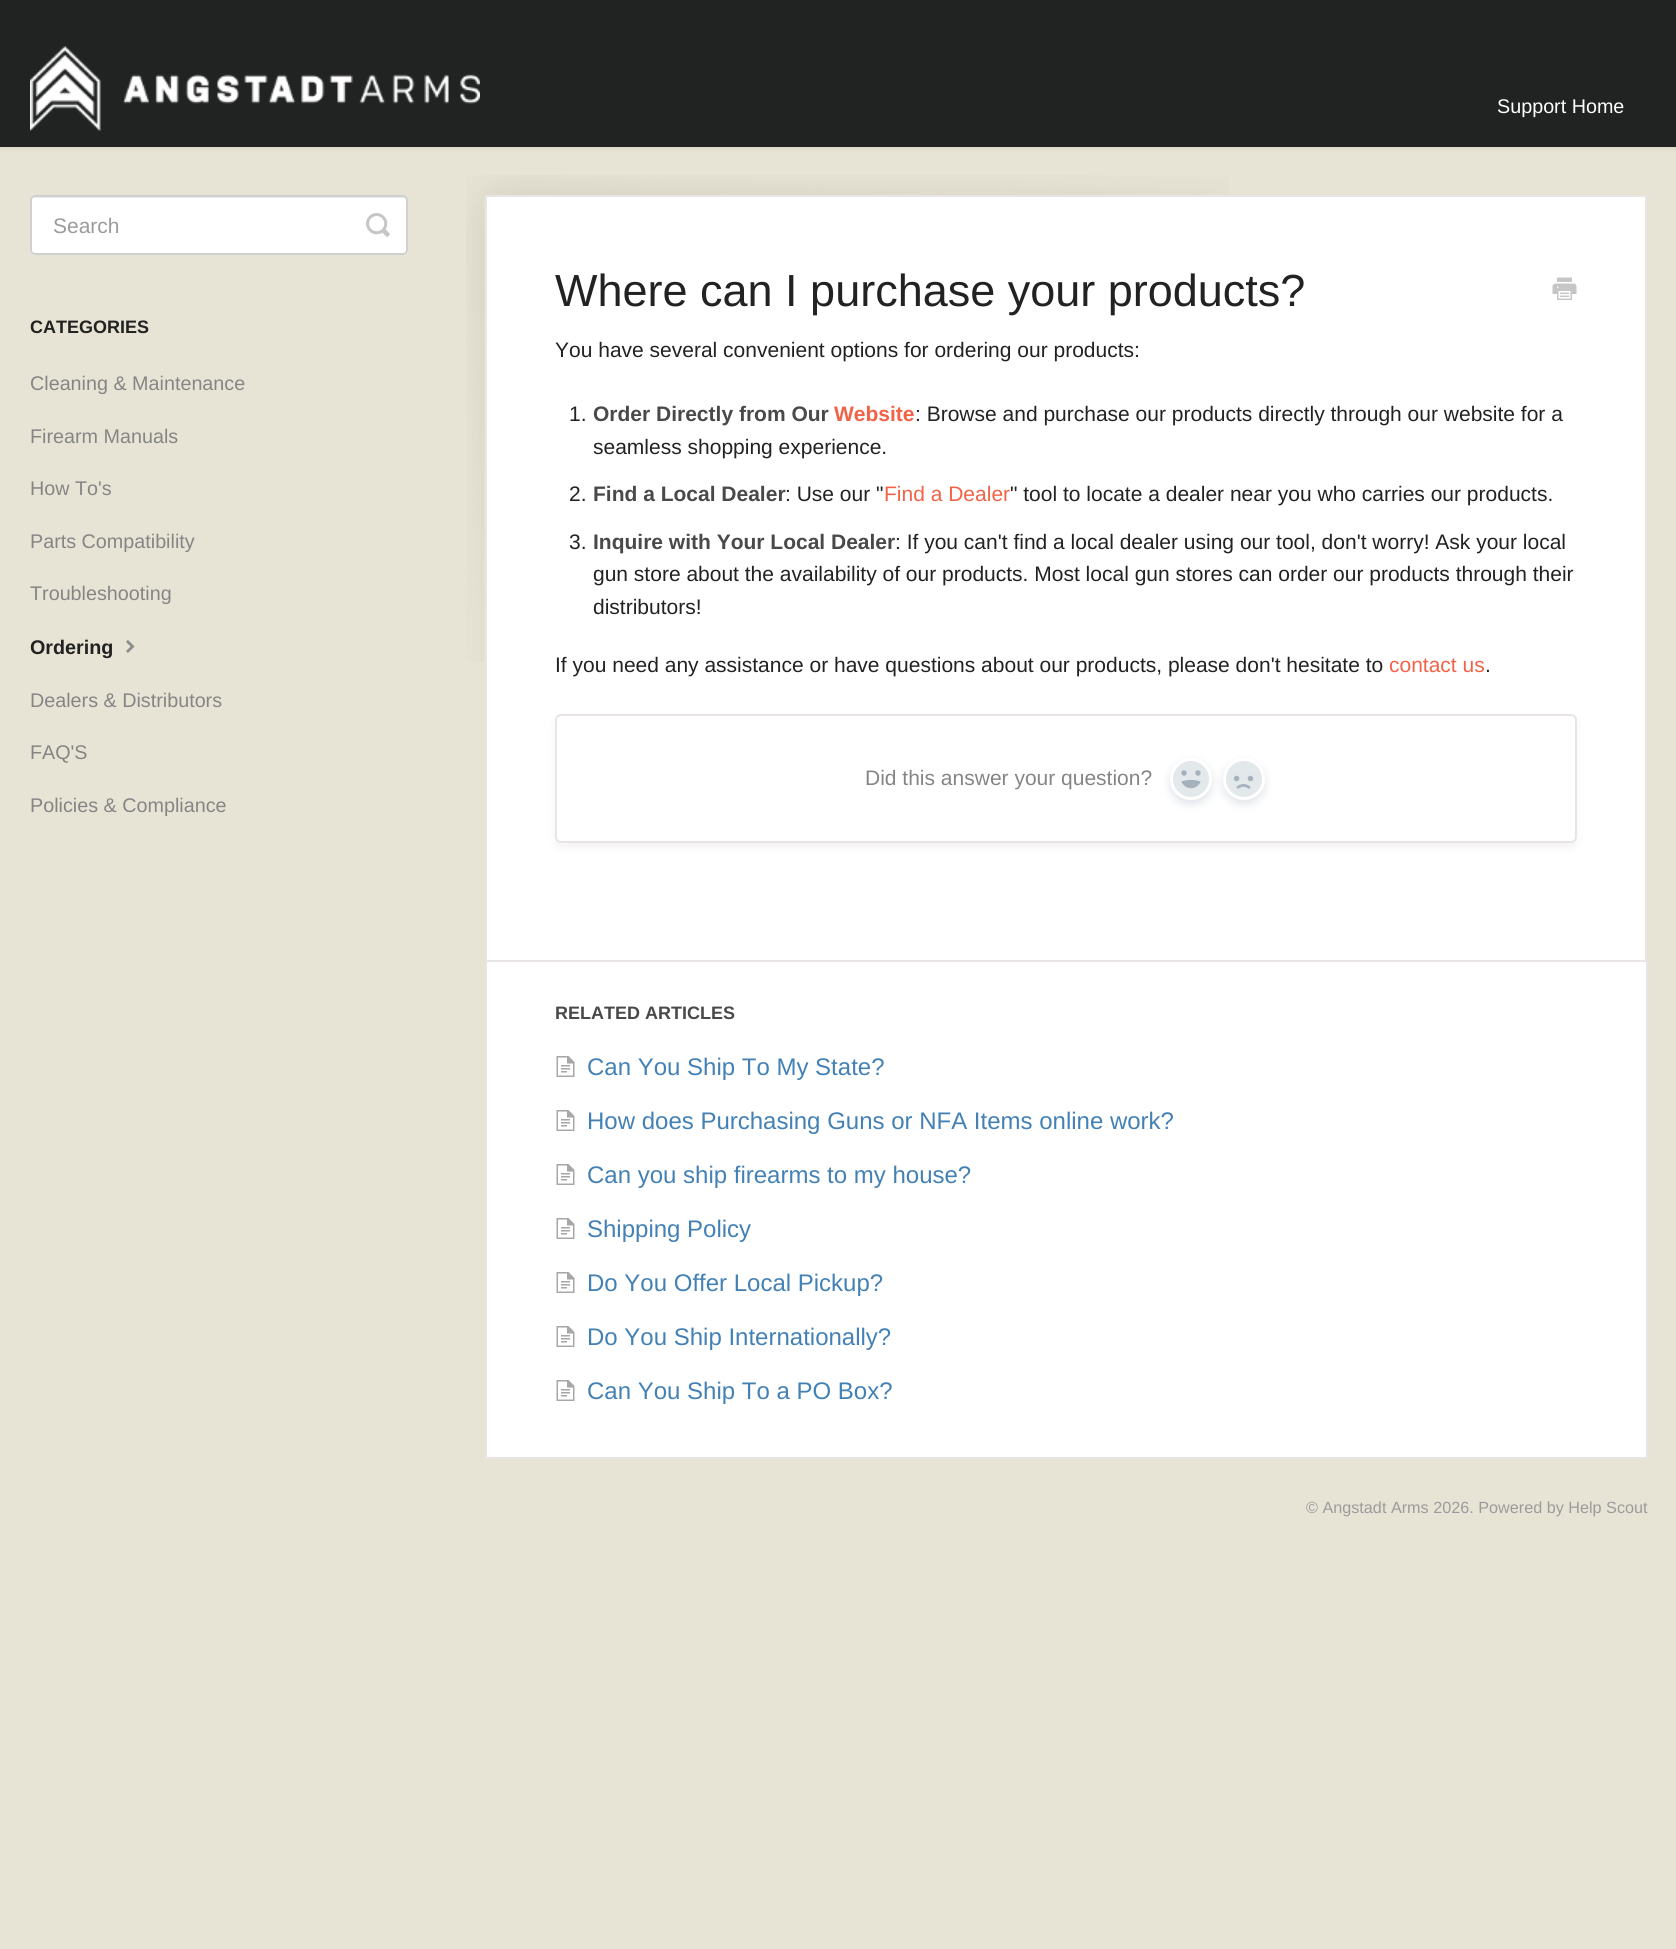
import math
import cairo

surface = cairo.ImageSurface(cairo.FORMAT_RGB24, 1676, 1949)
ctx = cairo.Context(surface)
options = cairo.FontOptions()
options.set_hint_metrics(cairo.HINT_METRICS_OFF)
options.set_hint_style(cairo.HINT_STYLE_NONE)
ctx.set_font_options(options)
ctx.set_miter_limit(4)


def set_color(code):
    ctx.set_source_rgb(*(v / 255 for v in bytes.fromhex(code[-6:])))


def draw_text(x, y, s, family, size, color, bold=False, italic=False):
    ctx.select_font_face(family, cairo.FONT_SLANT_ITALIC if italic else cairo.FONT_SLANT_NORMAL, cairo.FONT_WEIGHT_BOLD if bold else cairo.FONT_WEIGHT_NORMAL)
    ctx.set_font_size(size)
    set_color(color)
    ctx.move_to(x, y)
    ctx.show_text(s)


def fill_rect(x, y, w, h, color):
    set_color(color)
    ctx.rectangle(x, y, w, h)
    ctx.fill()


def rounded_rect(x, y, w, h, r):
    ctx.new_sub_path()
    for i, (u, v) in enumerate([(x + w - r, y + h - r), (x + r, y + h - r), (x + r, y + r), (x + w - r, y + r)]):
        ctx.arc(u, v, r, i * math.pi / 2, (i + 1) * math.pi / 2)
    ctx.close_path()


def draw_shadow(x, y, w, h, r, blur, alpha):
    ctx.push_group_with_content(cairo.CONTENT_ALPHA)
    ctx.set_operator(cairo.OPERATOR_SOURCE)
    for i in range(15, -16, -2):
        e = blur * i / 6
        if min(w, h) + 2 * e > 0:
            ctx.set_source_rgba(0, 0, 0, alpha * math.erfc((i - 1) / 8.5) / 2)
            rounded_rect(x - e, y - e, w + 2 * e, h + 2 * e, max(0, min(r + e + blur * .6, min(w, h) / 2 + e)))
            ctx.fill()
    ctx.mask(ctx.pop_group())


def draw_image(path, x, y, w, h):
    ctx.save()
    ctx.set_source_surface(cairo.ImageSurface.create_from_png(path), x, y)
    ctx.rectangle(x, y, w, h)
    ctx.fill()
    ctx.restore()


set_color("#e8e4d5")
ctx.paint()
set_color("#000000")
draw_shadow(0, 2, 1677, 147, 0, 3, 0.07)
fill_rect(0, 0, 1676, 147, "#212322")
draw_image("assets/img1.png", 30, 46, 450, 85)
draw_text(1497, 113, "Support Home", "Liberation Sans", 19.75, "#ffffff")
rounded_rect(30, 195, 378, 60, 5)
ctx.fill()
set_color("#ececec")
ctx.new_path()
ctx.move_to(34, 198)
ctx.line_to(404, 198)
ctx.curve_to(405, 198, 406, 199, 406, 201)
ctx.line_to(406, 253)
ctx.curve_to(407, 253, 407, 252, 407, 251)
ctx.line_to(407, 200)
ctx.curve_to(407, 198, 406, 197, 404, 197)
ctx.line_to(35, 197)
ctx.curve_to(33, 197, 32, 198, 32, 200)
ctx.line_to(32, 201)
ctx.curve_to(32, 199, 33, 198, 34, 198)
ctx.close_path()
ctx.fill()
rounded_rect(31, 196, 376, 58, 4)
set_color("#d0d0d0")
ctx.stroke()
draw_text(53, 233, "Search", "Liberation Sans", 21, "#9b9b9b")
draw_image("assets/img2.png", 366, 213, 24, 24)
draw_text(30, 333, "CATEGORIES", "Liberation Sans", 18, "#222222", bold=True)
draw_text(30, 390, "Cleaning & Maintenance", "Liberation Sans", 19.75, "#858585")
draw_text(30, 443, "Firearm Manuals", "Liberation Sans", 19.75, "#858585")
draw_text(30, 495, "How To's", "Liberation Sans", 19.75, "#858585")
draw_text(30, 548, "Parts Compatibility", "Liberation Sans", 19.75, "#858585")
draw_text(30, 600, "Troubleshooting", "Liberation Sans", 19.75, "#858585")
draw_text(30, 654, "Ordering", "Liberation Sans", 19.75, "#222222", bold=True)
draw_image("assets/img3.png", 126, 640, 9, 13)
draw_text(30, 707, "Dealers & Distributors", "Liberation Sans", 19.75, "#858585")
draw_text(30, 759, "FAQ'S", "Liberation Sans", 19.75, "#858585")
draw_text(30, 812, "Policies & Compliance", "Liberation Sans", 19.75, "#858585")
draw_image("assets/img4.png", 466, 175, 763, 487)
set_color("#ffffff")
ctx.rectangle(486, 196, 1160, 765)
ctx.fill_preserve()
set_color("#e9e5e5")
ctx.stroke()
draw_text(555, 306, "Where can I purchase your products?", "Liberation Sans", 45, "#222222")
draw_image("assets/img5.png", 1552, 277, 25, 23)
draw_text(555, 357, "You have several convenient options for ordering our products:", "Liberation Sans", 21, "#222222")
draw_text(569, 421, "1.", "Liberation Sans", 21, "#222222")
draw_text(593, 421, "Order Directly from Our", "Liberation Sans", 21, "#494949", bold=True)
draw_text(834, 421, "Website", "Liberation Sans", 21, "#f26247", bold=True)
draw_text(915, 421, ": Browse and purchase our products directly through our website for a", "Liberation Sans", 21, "#222222")
draw_text(593, 454, "seamless shopping experience.", "Liberation Sans", 21, "#222222")
draw_text(569, 501, "2.", "Liberation Sans", 21, "#222222")
draw_text(593, 501, "Find a Local Dealer", "Liberation Sans", 21, "#494949", bold=True)
draw_text(785, 501, ": Use our \"", "Liberation Sans", 21, "#222222")
draw_text(884, 501, "Find a Dealer", "Liberation Sans", 21, "#f26247")
draw_text(1010, 501, "\" tool to locate a dealer near you who carries our products.", "Liberation Sans", 21, "#222222")
draw_text(569, 549, "3.", "Liberation Sans", 21, "#222222")
draw_text(593, 549, "Inquire with Your Local Dealer", "Liberation Sans", 21, "#494949", bold=True)
draw_text(895, 549, ": If you can't find a local dealer using our tool, don't worry! Ask your local", "Liberation Sans", 21, "#222222")
draw_text(593, 581, "gun store about the availability of our products. Most local gun stores can order our products through their", "Liberation Sans", 21, "#222222")
draw_text(593, 614, "distributors!", "Liberation Sans", 21, "#222222")
draw_text(555, 672, "If you need any assistance or have questions about our products, please don't hesitate to", "Liberation Sans", 21, "#222222")
draw_text(1389, 672, "contact us", "Liberation Sans", 21, "#f26247")
draw_text(1485, 672, ".", "Liberation Sans", 21, "#222222")
set_color("#000000")
draw_shadow(555, 719, 1022, 129, 6, 4.5, 0.05)
set_color("#ffffff")
rounded_rect(556, 715, 1020, 127, 5)
ctx.fill_preserve()
set_color("#e9e5e5")
ctx.stroke()
draw_text(865, 785, "Did this answer your question?", "Liberation Sans", 21, "#858585")
set_color("#c1cbd4")
draw_shadow(1170, 762, 42, 42, 21, 4.5, 0.5)
set_color("#e3e8eb")
ctx.arc(1191, 779, 19.5, 0, 2 * math.pi)
ctx.fill_preserve()
set_color("#ffffff")
ctx.set_line_width(3)
ctx.stroke()
draw_image("assets/img6.png", 1181, 770, 20, 19)
set_color("#c1cbd4")
draw_shadow(1223, 762, 42, 42, 21, 4.5, 0.5)
set_color("#e3e8eb")
ctx.arc(1244, 779, 19.5, 0, 2 * math.pi)
ctx.fill_preserve()
set_color("#ffffff")
ctx.stroke()
draw_image("assets/img7.png", 1233, 775, 21, 14)
fill_rect(487, 962, 1159, 495, "#ffffff")
fill_rect(1646, 962, 2, 496, "#e9e5e5")
fill_rect(485, 1457, 1162, 2, "#e9e5e5")
fill_rect(485, 962, 2, 496, "#e9e5e5")
draw_text(555, 1019, "RELATED ARTICLES", "Liberation Sans", 18, "#494949", bold=True)
draw_image("assets/img8.png", 556, 1056, 19, 21)
draw_text(587, 1075, "Can You Ship To My State?", "Liberation Sans", 24, "#4381b5")
draw_image("assets/img8.png", 556, 1110, 19, 21)
draw_text(587, 1129, "How does Purchasing Guns or NFA Items online work?", "Liberation Sans", 24, "#4381b5")
draw_image("assets/img8.png", 556, 1164, 19, 21)
draw_text(587, 1183, "Can you ship firearms to my house?", "Liberation Sans", 24, "#4381b5")
draw_image("assets/img8.png", 556, 1218, 19, 21)
draw_text(587, 1237, "Shipping Policy", "Liberation Sans", 24, "#4381b5")
draw_image("assets/img8.png", 556, 1272, 19, 21)
draw_text(587, 1291, "Do You Offer Local Pickup?", "Liberation Sans", 24, "#4381b5")
draw_image("assets/img8.png", 556, 1326, 19, 21)
draw_text(587, 1345, "Do You Ship Internationally?", "Liberation Sans", 24, "#4381b5")
draw_image("assets/img8.png", 556, 1380, 19, 21)
draw_text(587, 1399, "Can You Ship To a PO Box?", "Liberation Sans", 24, "#4381b5")
draw_text(1306, 1513, "© Angstadt Arms 2026. Powered by Help Scout", "Liberation Sans", 16.2, "#9b9b9b")
surface.write_to_png("output.png")
